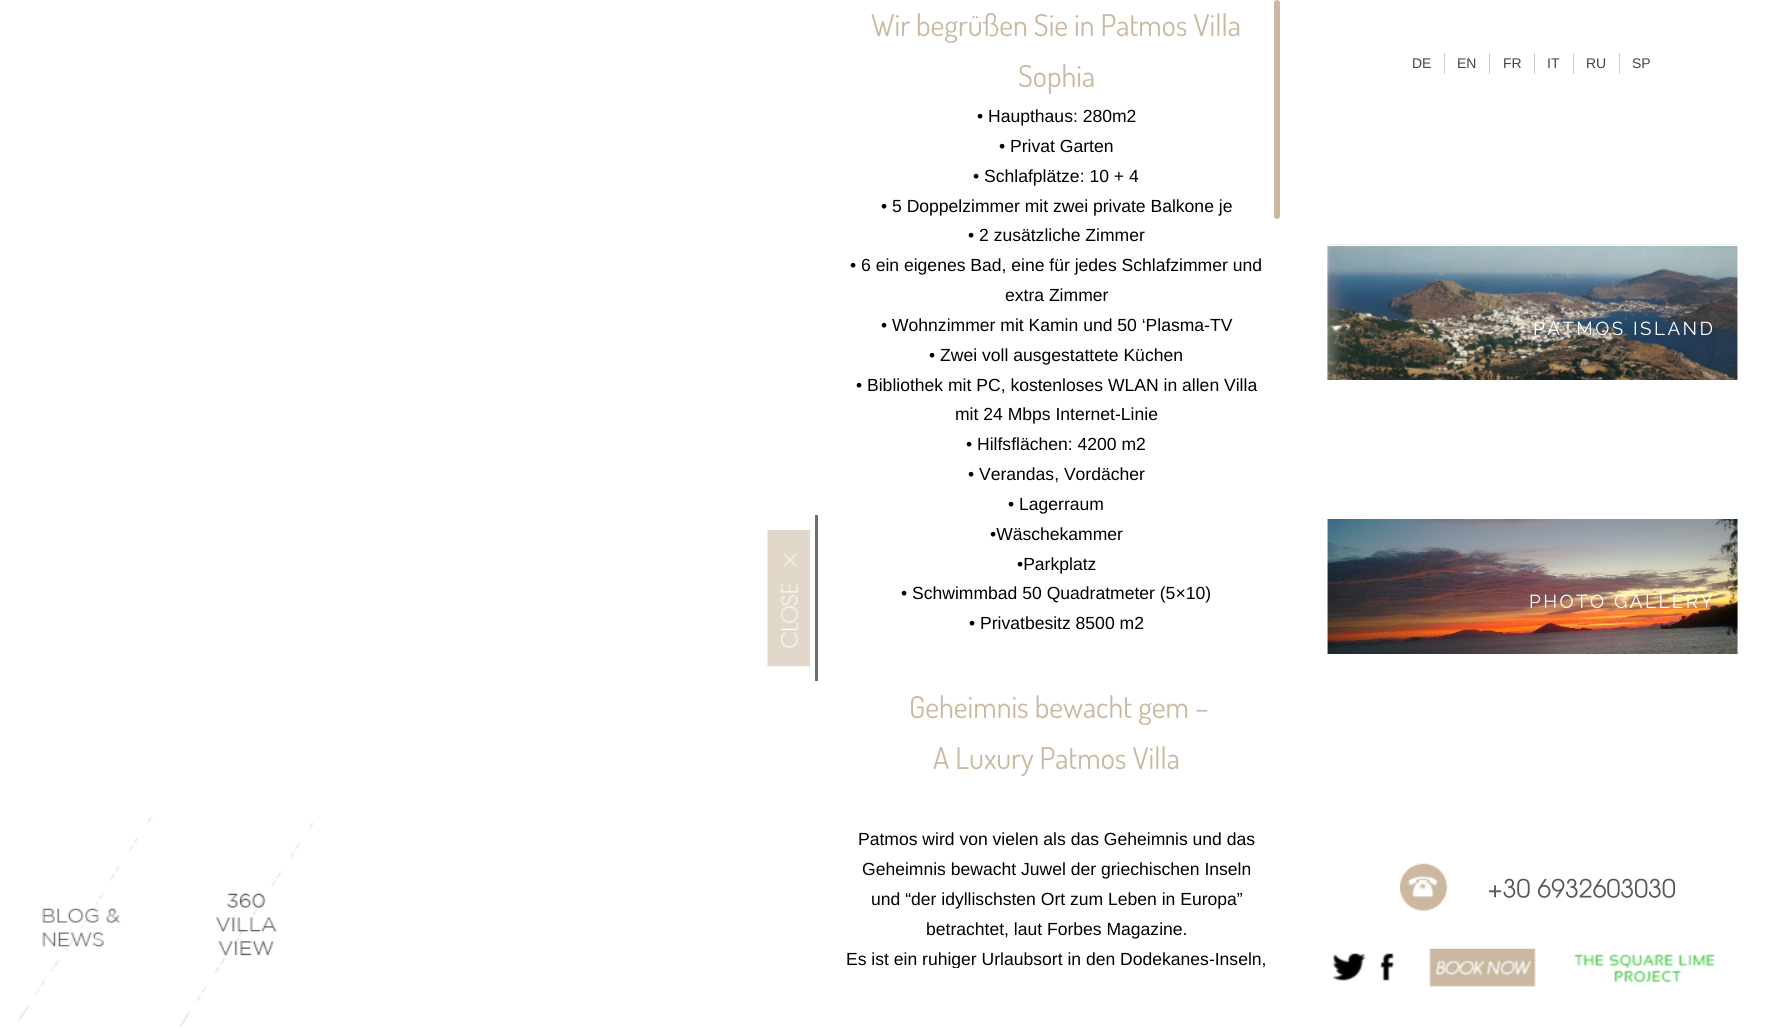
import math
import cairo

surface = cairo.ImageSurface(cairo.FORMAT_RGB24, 1767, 1030)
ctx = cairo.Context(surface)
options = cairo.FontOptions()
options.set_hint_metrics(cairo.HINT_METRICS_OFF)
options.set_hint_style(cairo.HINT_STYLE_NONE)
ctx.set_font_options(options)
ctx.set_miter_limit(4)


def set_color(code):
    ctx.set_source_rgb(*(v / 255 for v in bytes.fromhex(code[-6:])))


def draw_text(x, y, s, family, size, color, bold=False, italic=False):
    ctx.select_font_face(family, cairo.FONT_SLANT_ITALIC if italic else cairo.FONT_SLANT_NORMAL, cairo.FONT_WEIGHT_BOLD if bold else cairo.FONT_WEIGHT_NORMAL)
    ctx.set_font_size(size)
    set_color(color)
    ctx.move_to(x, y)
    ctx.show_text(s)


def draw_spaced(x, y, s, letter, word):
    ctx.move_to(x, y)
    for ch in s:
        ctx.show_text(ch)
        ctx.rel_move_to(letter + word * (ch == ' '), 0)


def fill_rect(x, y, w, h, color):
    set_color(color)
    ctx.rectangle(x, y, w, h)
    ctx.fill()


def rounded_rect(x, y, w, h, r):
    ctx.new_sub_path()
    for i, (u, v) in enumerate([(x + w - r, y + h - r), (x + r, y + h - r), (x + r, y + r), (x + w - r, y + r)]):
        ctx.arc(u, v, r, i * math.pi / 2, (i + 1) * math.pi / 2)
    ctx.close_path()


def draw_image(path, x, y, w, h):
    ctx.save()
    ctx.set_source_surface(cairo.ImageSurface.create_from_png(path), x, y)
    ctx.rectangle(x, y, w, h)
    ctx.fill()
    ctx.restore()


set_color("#ffffff")
ctx.paint()
set_color("#cab9a0")
rounded_rect(1274, 0, 6, 219, 3)
ctx.fill()
draw_image("assets/img1.png", 18, 816, 135, 204)
draw_image("assets/img2.png", 180, 822, 134, 205)
draw_image("assets/img3.png", 767, 530, 44, 137)
fill_rect(815, 515, 3, 166, "#6e6e6e")
draw_text(871, 36, "Wir begrüßen Sie in Patmos Villa", "Dosis", 30, "#cab8a0")
draw_text(1018, 87, "Sophia", "Dosis", 30, "#cab8a0")
draw_text(977, 122, "• Haupthaus: 280m2", "Liberation Sans", 17.55, "#000000")
draw_text(999, 152, "• Privat Garten", "Liberation Sans", 17.55, "#000000")
draw_text(973, 182, "• Schlafplätze: 10 + 4", "Liberation Sans", 17.55, "#000000")
draw_text(881, 212, "• 5 Doppelzimmer mit zwei private Balkone je", "Liberation Sans", 17.55, "#000000")
draw_text(968, 241, "• 2 zusätzliche Zimmer", "Liberation Sans", 17.55, "#000000")
draw_text(850, 271, "• 6 ein eigenes Bad, eine für jedes Schlafzimmer und", "Liberation Sans", 17.55, "#000000")
draw_text(1005, 301, "extra Zimmer", "Liberation Sans", 17.55, "#000000")
draw_text(881, 331, "• Wohnzimmer mit Kamin und 50 ‘Plasma-TV", "Liberation Sans", 17.55, "#000000")
draw_text(929, 361, "• Zwei voll ausgestattete Küchen", "Liberation Sans", 17.55, "#000000")
draw_text(856, 391, "• Bibliothek mit PC, kostenloses WLAN in allen Villa", "Liberation Sans", 17.55, "#000000")
draw_text(955, 420, "mit 24 Mbps Internet-Linie", "Liberation Sans", 17.55, "#000000")
draw_text(966, 450, "• Hilfsflächen: 4200 m2", "Liberation Sans", 17.55, "#000000")
draw_text(968, 480, "• Verandas, Vordächer", "Liberation Sans", 17.55, "#000000")
draw_text(1008, 510, "• Lagerraum", "Liberation Sans", 17.55, "#000000")
draw_text(990, 540, "•Wäschekammer", "Liberation Sans", 17.55, "#000000")
draw_text(1017, 570, "•Parkplatz", "Liberation Sans", 17.55, "#000000")
draw_text(901, 599, "• Schwimmbad 50 Quadratmeter (5×10)", "Liberation Sans", 17.55, "#000000")
draw_text(969, 629, "• Privatbesitz 8500 m2", "Liberation Sans", 17.55, "#000000")
draw_text(909, 718, "Geheimnis bewacht gem –", "Dosis", 30, "#cab8a0")
draw_text(933, 769, "A Luxury Patmos Villa", "Dosis", 30, "#cab8a0")
draw_text(858, 845, "Patmos wird von vielen als das Geheimnis und das", "Liberation Sans", 17.55, "#000000")
draw_text(862, 875, "Geheimnis bewacht Juwel der griechischen Inseln", "Liberation Sans", 17.55, "#000000")
draw_text(871, 905, "und “der idyllischsten Ort zum Leben in Europa”", "Liberation Sans", 17.55, "#000000")
draw_text(926, 935, "betrachtet, laut Forbes Magazine.", "Liberation Sans", 17.55, "#000000")
ctx.save()
ctx.rectangle(833, 0, 447, 968)
ctx.clip()
draw_text(846, 965, "Es ist ein ruhiger Urlaubsort in den Dodekanes-Inseln,", "Liberation Sans", 17.55, "#000000")
ctx.restore()
draw_text(1412, 68, "DE", "Liberation Sans", 14, "#444444")
fill_rect(1444, 53, 1, 21, "#cdcdcd")
draw_text(1457, 68, "EN", "Liberation Sans", 14, "#444444")
fill_rect(1489, 53, 1, 21, "#cdcdcd")
draw_text(1503, 68, "FR", "Liberation Sans", 14, "#444444")
fill_rect(1534, 53, 1, 21, "#cdcdcd")
draw_text(1547, 68, "IT", "Liberation Sans", 14, "#444444")
fill_rect(1573, 53, 1, 21, "#cdcdcd")
draw_text(1586, 68, "RU", "Liberation Sans", 14, "#444444")
fill_rect(1619, 53, 1, 21, "#cdcdcd")
draw_text(1632, 68, "SP", "Liberation Sans", 14, "#444444")
draw_image("assets/img4.png", 1327, 244, 411, 136)
ctx.rectangle(1326.5, 245.5, 412, 135)
set_color("#ffffff")
ctx.set_line_width(1)
ctx.stroke()
ctx.select_font_face("Raleway")
ctx.set_font_size(18.75)
draw_spaced(1533, 335, "PATMOS ISLAND", 2.5, 0)
draw_image("assets/img5.png", 1327, 519, 411, 135)
draw_spaced(1529, 608, "PHOTO GALLERY", 2.5, 0)
draw_image("assets/img6.png", 1400, 863, 48, 49)
draw_image("assets/img7.png", 1489, 878, 187, 20)
draw_image("assets/img8.png", 1332, 953, 34, 28)
draw_image("assets/img9.png", 1380, 953, 15, 28)
draw_image("assets/img10.png", 1429, 948, 107, 39)
draw_image("assets/img11.png", 1573, 954, 142, 29)
surface.write_to_png("output.png")
